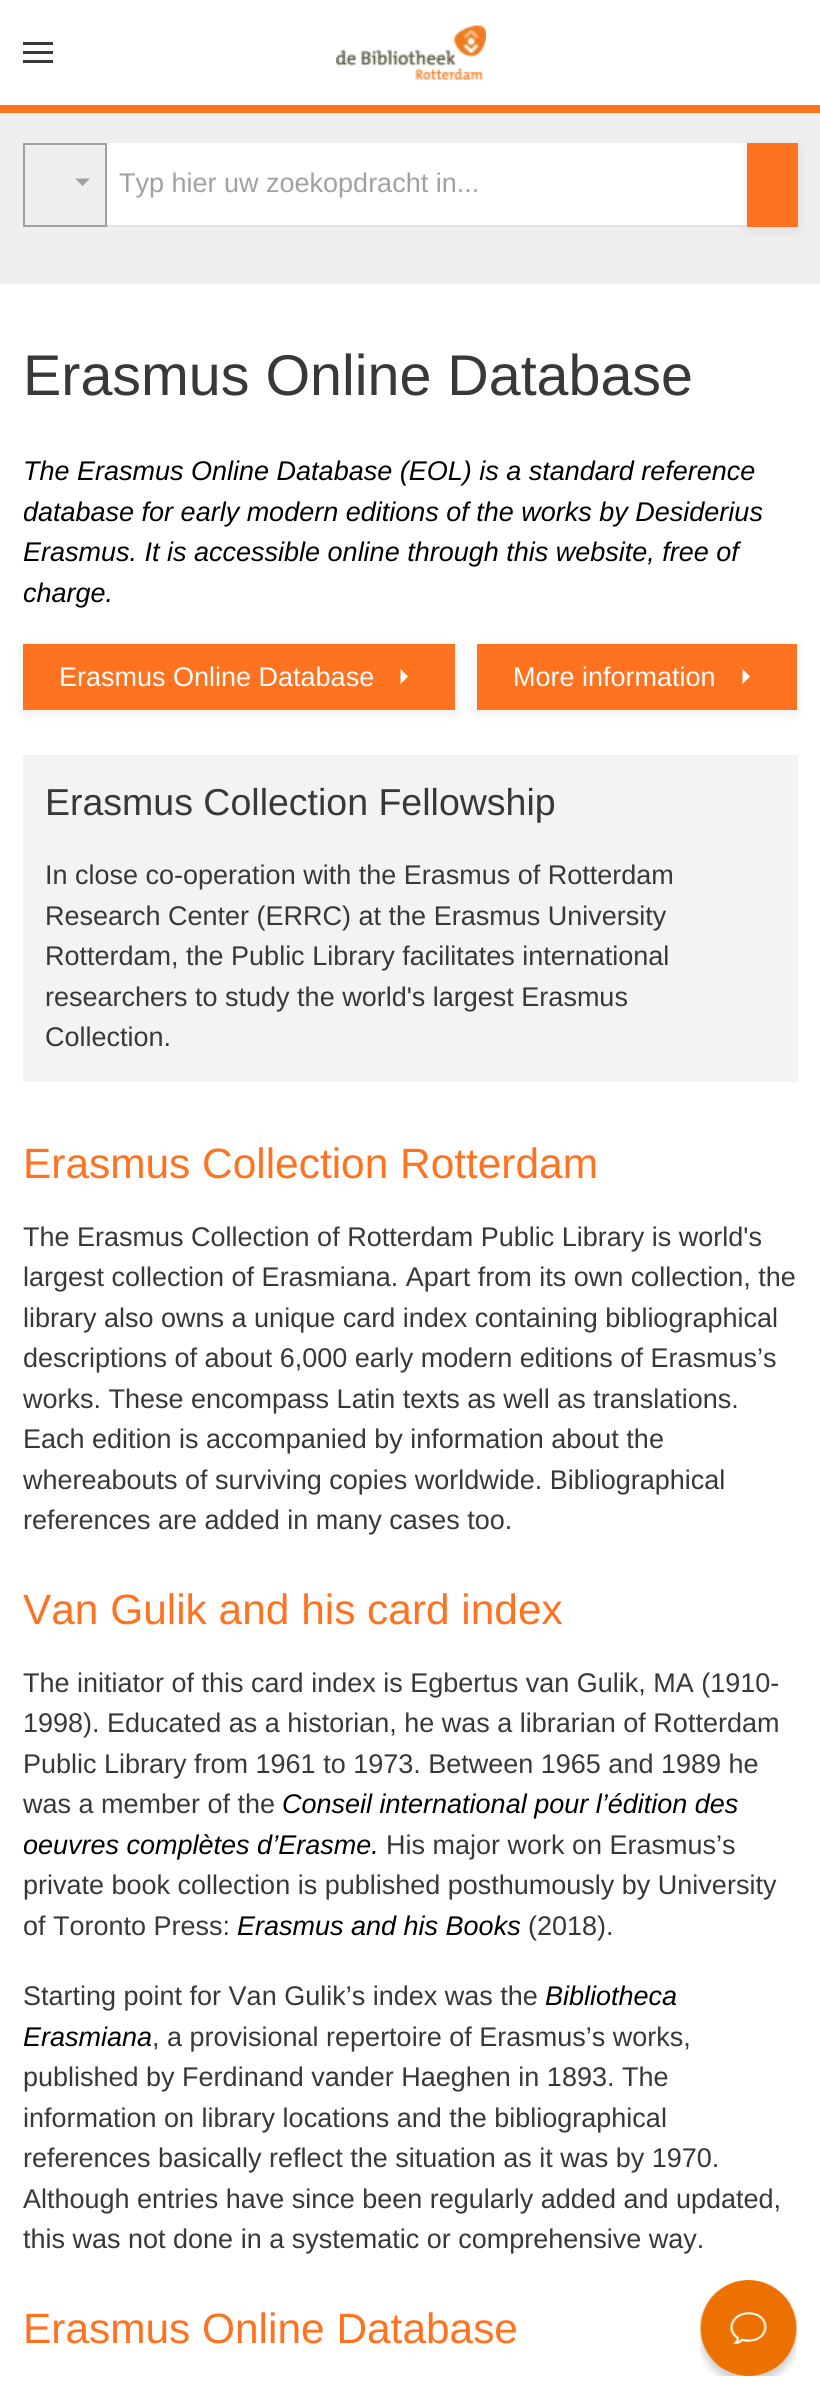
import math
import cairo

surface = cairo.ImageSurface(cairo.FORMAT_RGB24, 820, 2400)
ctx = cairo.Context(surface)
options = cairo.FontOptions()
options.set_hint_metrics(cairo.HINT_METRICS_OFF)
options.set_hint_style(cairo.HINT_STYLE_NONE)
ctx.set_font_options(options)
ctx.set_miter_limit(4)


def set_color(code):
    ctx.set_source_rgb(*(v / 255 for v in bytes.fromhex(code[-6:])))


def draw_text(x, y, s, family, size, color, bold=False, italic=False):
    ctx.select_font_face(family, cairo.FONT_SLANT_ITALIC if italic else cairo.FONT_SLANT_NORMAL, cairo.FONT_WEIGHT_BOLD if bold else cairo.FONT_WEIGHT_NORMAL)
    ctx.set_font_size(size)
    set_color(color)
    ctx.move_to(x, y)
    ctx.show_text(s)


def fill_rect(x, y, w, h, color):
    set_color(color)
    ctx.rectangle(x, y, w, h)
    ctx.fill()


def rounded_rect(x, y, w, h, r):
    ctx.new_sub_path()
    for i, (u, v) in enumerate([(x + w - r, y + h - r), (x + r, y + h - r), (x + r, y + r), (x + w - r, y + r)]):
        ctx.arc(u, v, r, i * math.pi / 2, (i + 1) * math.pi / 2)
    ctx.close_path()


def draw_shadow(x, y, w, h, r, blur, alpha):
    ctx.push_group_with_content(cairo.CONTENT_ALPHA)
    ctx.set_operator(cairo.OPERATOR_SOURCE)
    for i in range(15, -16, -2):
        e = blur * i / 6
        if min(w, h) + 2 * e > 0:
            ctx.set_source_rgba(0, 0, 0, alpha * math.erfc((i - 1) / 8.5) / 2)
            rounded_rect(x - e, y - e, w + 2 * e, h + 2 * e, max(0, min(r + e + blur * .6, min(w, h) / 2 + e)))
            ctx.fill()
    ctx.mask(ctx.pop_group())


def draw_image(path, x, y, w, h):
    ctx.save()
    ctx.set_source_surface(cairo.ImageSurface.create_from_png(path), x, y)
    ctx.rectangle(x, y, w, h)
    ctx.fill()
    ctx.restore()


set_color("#efefef")
ctx.paint()
fill_rect(0, 0, 820, 105, "#ffffff")
fill_rect(0, 105, 820, 8, "#ff7320")
fill_rect(23, 42, 30, 3, "#39373a")
fill_rect(23, 51, 30, 3, "#39373a")
fill_rect(23, 60, 30, 3, "#39373a")
draw_image("assets/img1.png", 336, 25, 150, 55)
fill_rect(105, 225, 644, 2, "#e2e2e2")
ctx.rectangle(24, 144, 82, 82)
set_color("#a1a1a1")
ctx.stroke()
ctx.new_path()
ctx.move_to(75, 178.5)
ctx.line_to(90, 178.5)
ctx.line_to(82.5, 186)
ctx.close_path()
ctx.fill()
fill_rect(107, 143, 640, 82, "#ffffff")
draw_text(119, 192, "Typ hier uw zoekopdracht in...", "Liberation Sans", 27, "#a1a1a1")
set_color("#000000")
draw_shadow(747, 146, 51, 84, 0, 6, 0.08)
fill_rect(747, 143, 51, 84, "#ff7320")
fill_rect(0, 284, 820, 2116, "#ffffff")
draw_text(23, 395, "Erasmus Online Database", "Liberation Sans", 57.4, "#39373a")
draw_text(23, 480, "The Erasmus Online Database (EOL) is a standard reference", "Liberation Sans", 27, "#000000", italic=True)
draw_text(23, 521, "database for early modern editions of the works by Desiderius", "Liberation Sans", 27, "#000000", italic=True)
draw_text(23, 561, "Erasmus. It is accessible online through this website, free of", "Liberation Sans", 27, "#000000", italic=True)
draw_text(23, 602, "charge.", "Liberation Sans", 27, "#000000", italic=True)
set_color("#000000")
draw_shadow(23, 647, 432, 66, 0, 6, 0.08)
fill_rect(23, 644, 432, 66, "#ff7320")
draw_text(59, 686, "Erasmus Online Database", "Liberation Sans", 27, "#ffffff")
ctx.new_path()
ctx.move_to(400.5, 669)
ctx.line_to(408, 676.5)
ctx.line_to(400.5, 684)
ctx.close_path()
ctx.fill()
set_color("#000000")
draw_shadow(477, 647, 320, 66, 0, 6, 0.08)
fill_rect(477, 644, 320, 66, "#ff7320")
draw_text(513, 686, "More information", "Liberation Sans", 27, "#ffffff")
ctx.new_path()
ctx.move_to(742.5, 669)
ctx.line_to(750, 676.5)
ctx.line_to(742.5, 684)
ctx.close_path()
ctx.fill()
fill_rect(23, 755, 775, 327, "#f3f3f3")
draw_text(45, 815, "Erasmus Collection Fellowship", "Liberation Sans", 37.5, "#39373a")
draw_text(45, 884, "In close co-operation with the Erasmus of Rotterdam", "Liberation Sans", 27, "#39373a")
draw_text(45, 925, "Research Center (ERRC) at the Erasmus University", "Liberation Sans", 27, "#39373a")
draw_text(45, 965, "Rotterdam, the Public Library facilitates international", "Liberation Sans", 27, "#39373a")
draw_text(45, 1006, "researchers to study the world's largest Erasmus", "Liberation Sans", 27, "#39373a")
draw_text(45, 1046, "Collection.", "Liberation Sans", 27, "#39373a")
draw_text(23, 1178, "Erasmus Collection Rotterdam", "Liberation Sans", 42.4, "#ff7320")
draw_text(23, 1246, "The Erasmus Collection of Rotterdam Public Library is world's", "Liberation Sans", 27, "#39373a")
draw_text(23, 1286, "largest collection of Erasmiana. Apart from its own collection, the", "Liberation Sans", 27, "#39373a")
draw_text(23, 1327, "library also owns a unique card index containing bibliographical", "Liberation Sans", 27, "#39373a")
draw_text(23, 1367, "descriptions of about 6,000 early modern editions of Erasmus’s", "Liberation Sans", 27, "#39373a")
draw_text(23, 1408, "works. These encompass Latin texts as well as translations.", "Liberation Sans", 27, "#39373a")
draw_text(23, 1448, "Each edition is accompanied by information about the", "Liberation Sans", 27, "#39373a")
draw_text(23, 1489, "whereabouts of surviving copies worldwide. Bibliographical", "Liberation Sans", 27, "#39373a")
draw_text(23, 1529, "references are added in many cases too.", "Liberation Sans", 27, "#39373a")
draw_text(23, 1624, "Van Gulik and his card index", "Liberation Sans", 42.4, "#ff7320")
draw_text(23, 1692, "The initiator of this card index is Egbertus van Gulik, MA (1910-", "Liberation Sans", 27, "#39373a")
draw_text(23, 1732, "1998). Educated as a historian, he was a librarian of Rotterdam", "Liberation Sans", 27, "#39373a")
draw_text(23, 1773, "Public Library from 1961 to 1973. Between 1965 and 1989 he", "Liberation Sans", 27, "#39373a")
draw_text(23, 1813, "was a member of the", "Liberation Sans", 27, "#39373a")
draw_text(282, 1813, "Conseil international pour l’édition des", "Liberation Sans", 27, "#000000", italic=True)
draw_text(23, 1854, "oeuvres complètes d’Erasme.", "Liberation Sans", 27, "#000000", italic=True)
draw_text(386, 1854, "His major work on Erasmus’s", "Liberation Sans", 27, "#39373a")
draw_text(23, 1894, "private book collection is published posthumously by University", "Liberation Sans", 27, "#39373a")
draw_text(23, 1935, "of Toronto Press:", "Liberation Sans", 27, "#39373a")
draw_text(237, 1935, "Erasmus and his Books", "Liberation Sans", 27, "#000000", italic=True)
draw_text(528, 1935, "(2018).", "Liberation Sans", 27, "#39373a")
draw_text(23, 2005, "Starting point for Van Gulik’s index was the", "Liberation Sans", 27, "#39373a")
draw_text(545, 2005, "Bibliotheca", "Liberation Sans", 27, "#000000", italic=True)
draw_text(23, 2046, "Erasmiana", "Liberation Sans", 27, "#000000", italic=True)
draw_text(152, 2046, ", a provisional repertoire of Erasmus’s works,", "Liberation Sans", 27, "#39373a")
draw_text(23, 2086, "published by Ferdinand vander Haeghen in 1893. The", "Liberation Sans", 27, "#39373a")
draw_text(23, 2127, "information on library locations and the bibliographical", "Liberation Sans", 27, "#39373a")
draw_text(23, 2167, "references basically reflect the situation as it was by 1970.", "Liberation Sans", 27, "#39373a")
draw_text(23, 2208, "Although entries have since been regularly added and updated,", "Liberation Sans", 27, "#39373a")
draw_text(23, 2248, "this was not done in a systematic or comprehensive way.", "Liberation Sans", 27, "#39373a")
draw_text(23, 2343, "Erasmus Online Database", "Liberation Sans", 42.4, "#ff7320")
draw_image("assets/img2.png", 700, 2280, 97, 96)
surface.write_to_png("output.png")
